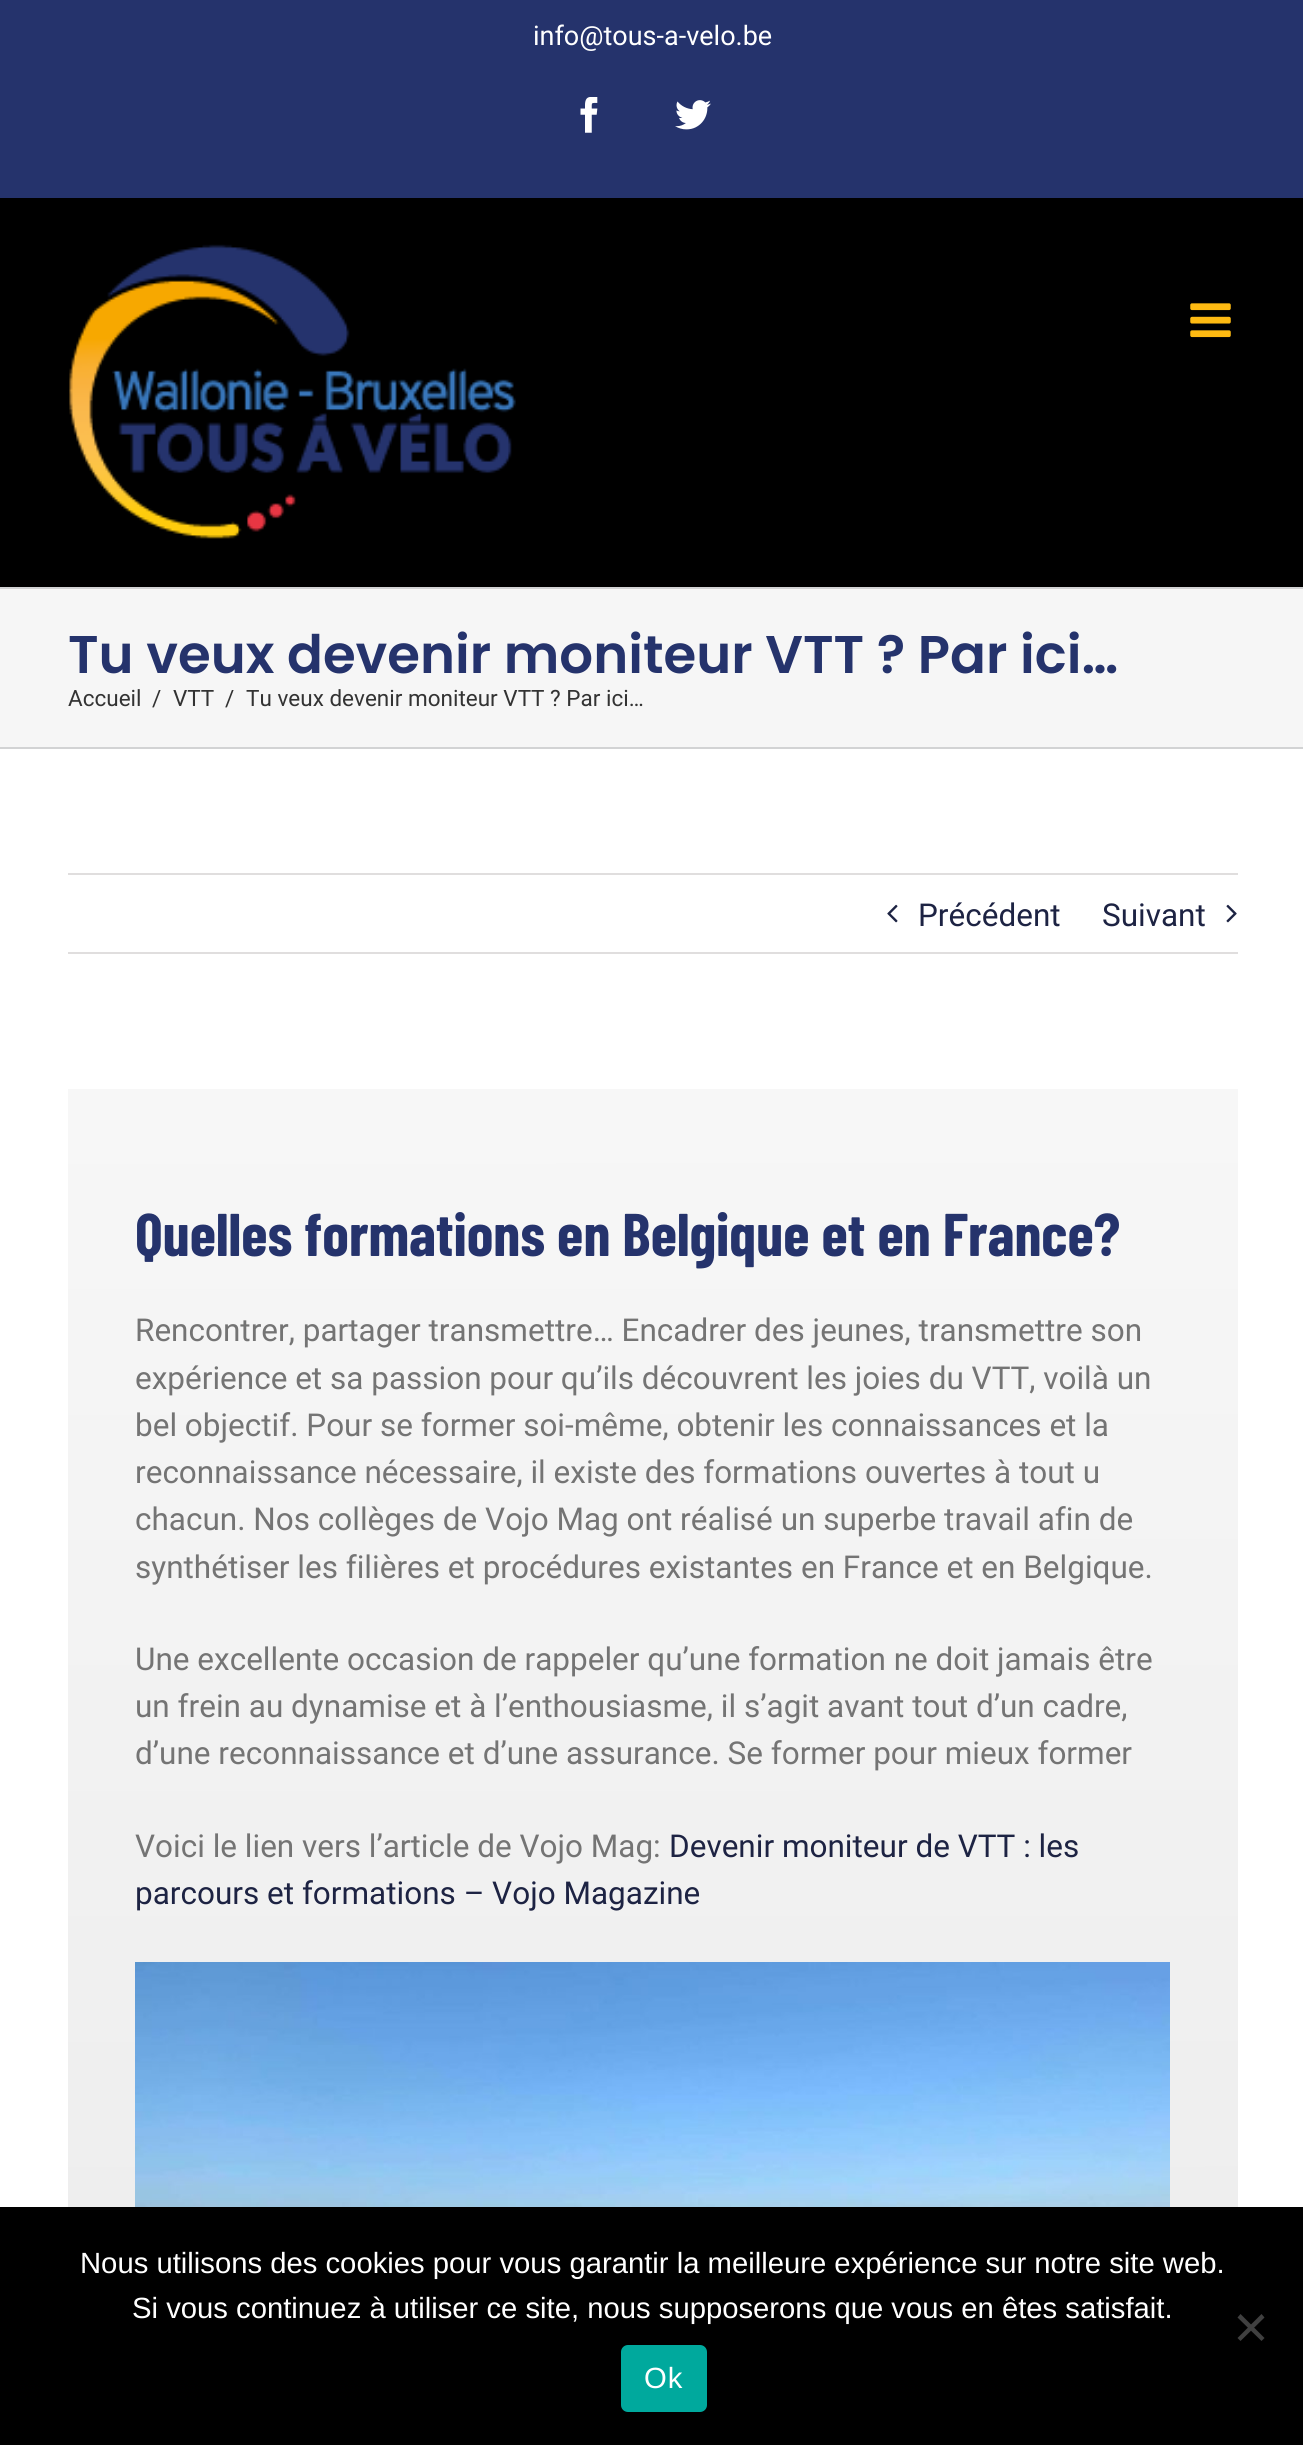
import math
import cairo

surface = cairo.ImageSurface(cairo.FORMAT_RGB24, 1303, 2445)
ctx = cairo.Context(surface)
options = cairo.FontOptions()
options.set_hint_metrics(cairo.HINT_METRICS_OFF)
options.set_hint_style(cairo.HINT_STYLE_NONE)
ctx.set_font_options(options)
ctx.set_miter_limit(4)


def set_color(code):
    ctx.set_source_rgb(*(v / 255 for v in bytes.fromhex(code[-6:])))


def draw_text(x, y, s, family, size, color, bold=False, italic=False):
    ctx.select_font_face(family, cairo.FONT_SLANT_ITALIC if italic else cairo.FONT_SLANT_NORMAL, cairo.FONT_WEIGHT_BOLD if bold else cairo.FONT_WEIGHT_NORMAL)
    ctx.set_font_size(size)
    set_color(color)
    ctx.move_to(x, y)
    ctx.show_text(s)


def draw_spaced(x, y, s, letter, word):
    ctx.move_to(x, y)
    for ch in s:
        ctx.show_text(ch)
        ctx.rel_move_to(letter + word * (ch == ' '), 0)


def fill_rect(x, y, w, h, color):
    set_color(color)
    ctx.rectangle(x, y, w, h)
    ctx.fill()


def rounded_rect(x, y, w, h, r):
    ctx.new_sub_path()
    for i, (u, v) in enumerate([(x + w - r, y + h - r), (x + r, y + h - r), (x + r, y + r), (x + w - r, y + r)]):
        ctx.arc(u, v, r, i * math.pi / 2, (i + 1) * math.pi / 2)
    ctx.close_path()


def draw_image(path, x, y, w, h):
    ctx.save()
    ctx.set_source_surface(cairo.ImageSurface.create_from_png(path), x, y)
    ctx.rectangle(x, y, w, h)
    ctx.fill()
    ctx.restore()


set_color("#ffffff")
ctx.paint()
fill_rect(0, 0, 1303, 198, "#25336c")
draw_text(533, 45, "info@tous-a-velo.be", "Roboto", 27, "#ffffff")
draw_image("assets/img1.png", 580, 97, 18, 36)
draw_image("assets/img2.png", 675, 100, 36, 30)
fill_rect(0, 198, 1303, 389, "#000000")
draw_image("assets/img3.png", 69, 244, 447, 295)
draw_image("assets/img4.png", 1190, 303, 41, 35)
fill_rect(0, 589, 1303, 158, "#f6f6f6")
fill_rect(0, 587, 1303, 2, "#d2d3d4")
fill_rect(0, 747, 1303, 2, "#d2d3d4")
draw_text(68, 673, "Tu veux devenir moniteur VTT ? Par ici…", "Poppins SemiBold", 53, "#25336c")
draw_text(68, 706, "Accueil", "Roboto", 22.5, "#333333")
draw_text(152, 706, "/", "Roboto", 22.5, "#333333")
draw_text(173, 706, "VTT", "Roboto", 22.5, "#333333")
draw_text(225, 706, "/", "Roboto", 22.5, "#333333")
draw_text(246, 706, "Tu veux devenir moniteur VTT ? Par ici…", "Roboto", 22.5, "#333333")
fill_rect(68, 873, 1170, 2, "#e0dede")
fill_rect(68, 952, 1170, 2, "#e0dede")
draw_image("assets/img5.png", 887, 904, 11, 19)
draw_text(918, 926, "Précédent", "Roboto", 31.5, "#1d2343")
draw_text(1102, 926, "Suivant", "Roboto", 31.5, "#1d2343")
draw_image("assets/img6.png", 1226, 904, 11, 19)
gradient = cairo.LinearGradient(652, 1089, 653, 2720)
gradient.add_color_stop_rgba(0, 0.969, 0.969, 0.969, 1)
gradient.add_color_stop_rgba(1, 0.918, 0.918, 0.918, 1)
ctx.set_source(gradient)
ctx.rectangle(68, 1089, 1170, 1118)
ctx.fill()
draw_text(135, 1256, "Quelles formations en Belgique et en France?", "Barlow Condensed", 60.25, "#25336c", bold=True)
draw_text(135, 1341, "Rencontrer, partager transmettre… Encadrer des jeunes, transmettre son", "Roboto", 31.5, "#747474")
draw_text(135, 1389, "expérience et sa passion pour qu’ils découvrent les joies du VTT, voilà un", "Roboto", 31.5, "#747474")
draw_text(135, 1436, "bel objectif. Pour se former soi-même, obtenir les connaissances et la", "Roboto", 31.5, "#747474")
draw_text(135, 1483, "reconnaissance nécessaire, il existe des formations ouvertes à tout u", "Roboto", 31.5, "#747474")
draw_text(135, 1530, "chacun. Nos collèges de Vojo Mag ont réalisé un superbe travail afin de", "Roboto", 31.5, "#747474")
draw_text(135, 1578, "synthétiser les filières et procédures existantes en France et en Belgique.", "Roboto", 31.5, "#747474")
draw_text(135, 1670, "Une excellente occasion de rappeler qu’une formation ne doit jamais être", "Roboto", 31.5, "#747474")
draw_text(135, 1717, "un frein au dynamise et à l’enthousiasme, il s’agit avant tout d’un cadre,", "Roboto", 31.5, "#747474")
draw_text(135, 1764, "d’une reconnaissance et d’une assurance. Se former pour mieux former", "Roboto", 31.5, "#747474")
draw_text(135, 1857, "Voici le lien vers l’article de Vojo Mag:", "Roboto", 31.5, "#747474")
draw_text(669, 1857, "Devenir moniteur de VTT : les", "Roboto", 31.5, "#1d2343")
draw_text(135, 1904, "parcours et formations – Vojo Magazine", "Roboto", 31.5, "#1d2343")
draw_image("assets/img7.png", 135, 1962, 1035, 245)
fill_rect(0, 2207, 1303, 238, "#000000")
draw_text(80, 2273, "Nous utilisons des cookies pour vous garantir la meilleure expérience sur notre site web.", "Liberation Sans", 29.25, "#ffffff")
draw_text(132, 2318, "Si vous continuez à utiliser ce site, nous supposerons que vous en êtes satisfait.", "Liberation Sans", 29.25, "#ffffff")
set_color("#404040")
ctx.new_path()
ctx.move_to(1261.5, 2314)
ctx.line_to(1264.5, 2317.5)
ctx.line_to(1240.5, 2341)
ctx.line_to(1237.5, 2338)
ctx.close_path()
ctx.fill()
ctx.new_path()
ctx.move_to(1237.5, 2317.5)
ctx.line_to(1240.5, 2314)
ctx.line_to(1264.5, 2338)
ctx.line_to(1261.5, 2341)
ctx.close_path()
ctx.fill()
set_color("#00a99d")
rounded_rect(621, 2345, 86, 67, 7)
ctx.fill()
set_color("#ffffff")
draw_spaced(644, 2388, "Ok", 1, 0)
surface.write_to_png("output.png")
